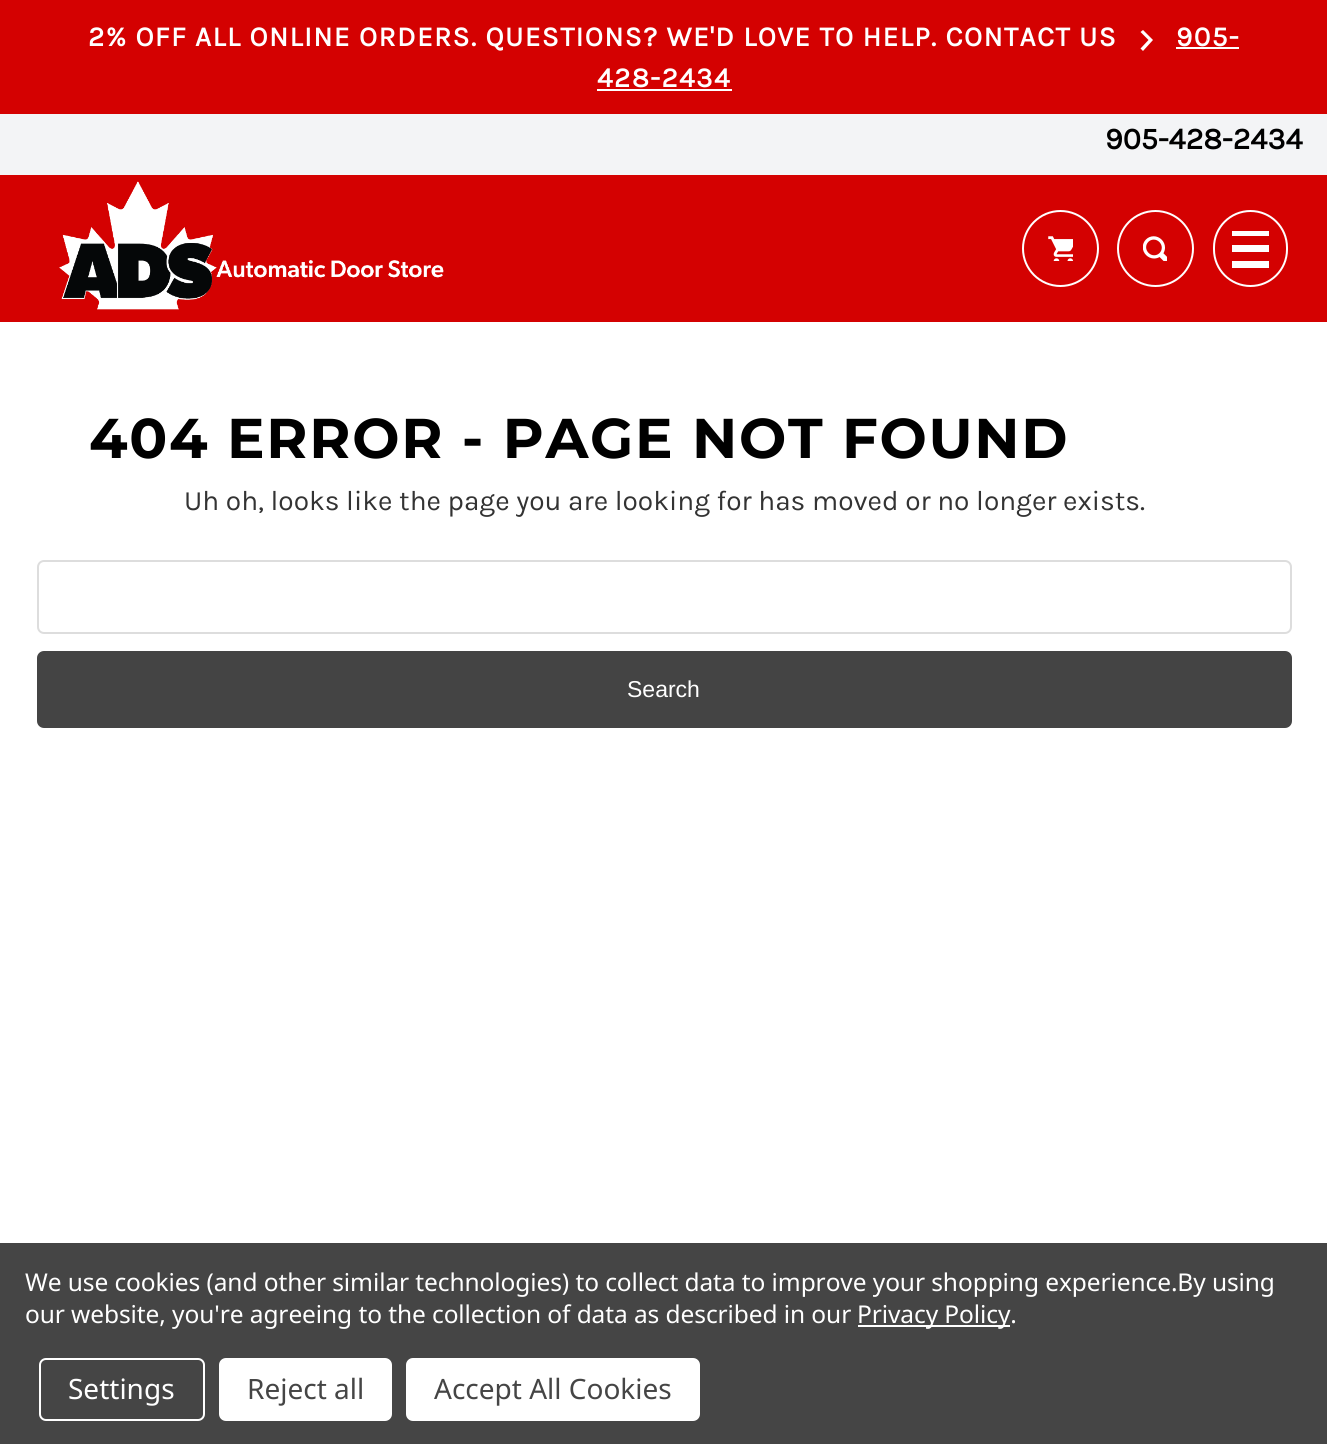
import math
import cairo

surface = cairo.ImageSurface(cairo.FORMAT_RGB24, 1327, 1444)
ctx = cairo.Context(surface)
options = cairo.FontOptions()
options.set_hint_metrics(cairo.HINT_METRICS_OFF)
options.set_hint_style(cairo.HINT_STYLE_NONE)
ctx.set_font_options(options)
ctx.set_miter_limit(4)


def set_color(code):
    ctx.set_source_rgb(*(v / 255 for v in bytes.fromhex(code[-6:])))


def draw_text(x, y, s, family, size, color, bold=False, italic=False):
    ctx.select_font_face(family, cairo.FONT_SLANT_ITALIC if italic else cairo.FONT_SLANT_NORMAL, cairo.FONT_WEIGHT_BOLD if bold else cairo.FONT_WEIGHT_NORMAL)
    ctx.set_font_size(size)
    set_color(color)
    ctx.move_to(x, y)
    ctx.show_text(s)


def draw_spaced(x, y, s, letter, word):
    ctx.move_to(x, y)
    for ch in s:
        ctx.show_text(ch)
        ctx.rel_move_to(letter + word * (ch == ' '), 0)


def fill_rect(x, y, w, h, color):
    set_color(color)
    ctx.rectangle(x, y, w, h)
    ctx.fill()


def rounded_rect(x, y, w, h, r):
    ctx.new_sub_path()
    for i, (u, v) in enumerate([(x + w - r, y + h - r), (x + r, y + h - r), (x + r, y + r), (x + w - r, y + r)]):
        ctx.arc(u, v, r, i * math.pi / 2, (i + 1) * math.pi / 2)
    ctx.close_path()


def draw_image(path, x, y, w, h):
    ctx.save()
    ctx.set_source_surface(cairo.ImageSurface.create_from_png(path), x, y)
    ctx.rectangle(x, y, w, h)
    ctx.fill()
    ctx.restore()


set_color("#ffffff")
ctx.paint()
fill_rect(0, 0, 1327, 114, "#d40101")
ctx.select_font_face("Karla", cairo.FONT_SLANT_NORMAL, cairo.FONT_WEIGHT_BOLD)
ctx.set_font_size(28)
set_color("#ffffff")
draw_spaced(88, 46, "2% OFF ALL ONLINE ORDERS. QUESTIONS? WE'D LOVE TO HELP. CONTACT US", 1.4, 0)
ctx.new_path()
ctx.move_to(1143, 30)
ctx.line_to(1140.5, 32)
ctx.line_to(1148.5, 40)
ctx.line_to(1140.5, 48.5)
ctx.line_to(1143, 51)
ctx.line_to(1153, 40)
ctx.close_path()
ctx.fill()
draw_spaced(1176, 46, "905-", 1.4, 0)
fill_rect(1176, 47, 63, 2, "#ffffff")
draw_spaced(597, 87, "428-2434", 1.4, 0)
fill_rect(597, 89, 135, 2, "#ffffff")
fill_rect(0, 114, 1327, 61, "#f3f4f6")
draw_text(1105, 149, "905-428-2434", "Karla", 30.5, "#000000", bold=True)
fill_rect(0, 175, 1327, 147, "#d40101")
draw_image("assets/img1.png", 59, 181, 385, 129)
ctx.arc(1060.5, 248.5, 37.5, 0, 2 * math.pi)
set_color("#ffffff")
ctx.stroke()
draw_image("assets/img2.png", 1048, 236, 25, 25)
ctx.arc(1155.5, 248.5, 37.5, 0, 2 * math.pi)
ctx.stroke()
draw_image("assets/img3.png", 1143, 236, 24, 25)
rounded_rect(1214, 211, 73, 75, 36.5)
ctx.stroke()
fill_rect(1232, 231, 37, 5, "#ffffff")
fill_rect(1232, 245, 37, 7, "#ffffff")
fill_rect(1232, 261, 37, 7, "#ffffff")
ctx.select_font_face("Montserrat", cairo.FONT_SLANT_NORMAL, cairo.FONT_WEIGHT_BOLD)
ctx.set_font_size(56)
set_color("#000000")
draw_spaced(89, 458, "404 ERROR - PAGE NOT FOUND", 1.75, 0)
draw_text(184, 510, "Uh oh, looks like the page you are looking for has moved or no longer exists.", "Karla", 28, "#333333")
rounded_rect(38, 561, 1253, 72, 6)
set_color("#dddddd")
ctx.stroke()
set_color("#444444")
rounded_rect(38, 652, 1253, 75, 6)
ctx.fill_preserve()
ctx.stroke()
draw_text(627, 697, "Search", "Liberation Sans", 23, "#ffffff")
fill_rect(0, 1243, 1327, 201, "#454545")
ctx.select_font_face("Noto Sans")
ctx.set_font_size(24.5)
set_color("#ffffff")
draw_spaced(25, 1291, "We use cookies (and other similar technologies) to collect data to improve your shopping experience.By using", -0.09, 0)
draw_spaced(25, 1323, "our website, you're agreeing to the collection of data as described in our", -0.09, 0)
fill_rect(858, 1325, 152, 2, "#ffffff")
draw_spaced(857, 1323, "Privacy Policy.", -0.09, 0)
rounded_rect(40, 1359, 164, 61, 6)
ctx.stroke()
draw_text(68, 1399, "Settings", "Noto Sans", 28, "#ffffff")
rounded_rect(219, 1358, 173, 63, 7)
ctx.fill()
draw_text(247, 1399, "Reject all", "Noto Sans", 28, "#454545")
set_color("#ffffff")
rounded_rect(406, 1358, 294, 63, 7)
ctx.fill()
draw_text(434, 1399, "Accept All Cookies", "Noto Sans", 28, "#454545")
surface.write_to_png("output.png")
